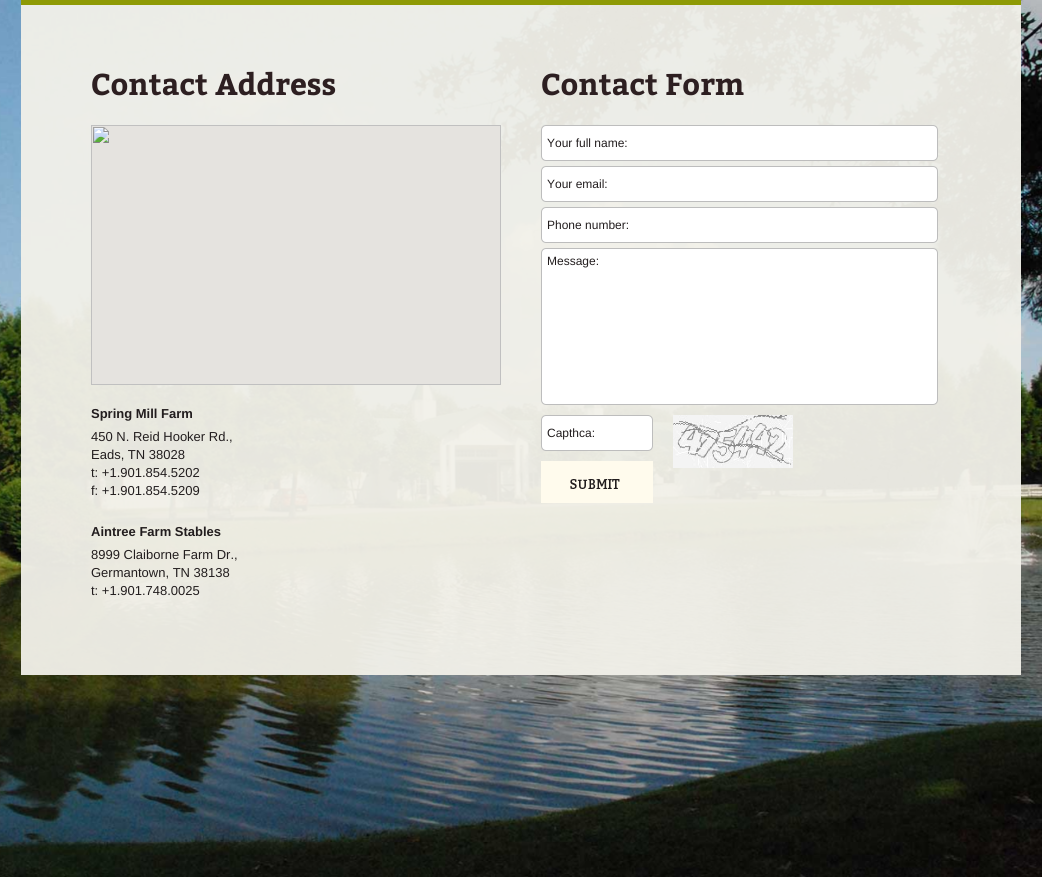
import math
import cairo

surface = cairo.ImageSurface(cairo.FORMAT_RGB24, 1042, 877)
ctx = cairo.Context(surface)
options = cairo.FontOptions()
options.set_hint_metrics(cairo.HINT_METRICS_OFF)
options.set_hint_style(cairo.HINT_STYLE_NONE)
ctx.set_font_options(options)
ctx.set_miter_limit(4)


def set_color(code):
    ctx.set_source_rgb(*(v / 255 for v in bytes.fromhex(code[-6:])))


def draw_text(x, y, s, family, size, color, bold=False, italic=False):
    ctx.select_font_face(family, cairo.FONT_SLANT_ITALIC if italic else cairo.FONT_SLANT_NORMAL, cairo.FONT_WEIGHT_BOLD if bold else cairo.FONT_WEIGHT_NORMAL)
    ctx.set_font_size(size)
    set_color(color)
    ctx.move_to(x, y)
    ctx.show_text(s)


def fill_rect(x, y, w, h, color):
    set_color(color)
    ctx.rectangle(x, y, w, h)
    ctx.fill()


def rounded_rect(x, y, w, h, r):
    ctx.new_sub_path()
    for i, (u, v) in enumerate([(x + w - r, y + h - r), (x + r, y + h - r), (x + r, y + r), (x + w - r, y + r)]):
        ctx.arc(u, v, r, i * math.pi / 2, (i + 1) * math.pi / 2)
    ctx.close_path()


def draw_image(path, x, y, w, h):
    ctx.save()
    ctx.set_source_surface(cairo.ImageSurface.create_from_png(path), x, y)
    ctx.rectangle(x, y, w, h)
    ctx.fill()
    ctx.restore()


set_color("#ffffff")
ctx.paint()
draw_image("assets/img1.png", 0, 0, 1042, 877)
ctx.set_source_rgba(0.949, 0.945, 0.914, 0.95)
ctx.rectangle(21, 5, 1000, 670)
ctx.fill()
fill_rect(21, 0, 1000, 5, "#8e9a05")
draw_text(91, 95, "Contact Address", "Bitter", 30, "#2d1f21", bold=True)
draw_image("assets/img2.png", 91, 125, 410, 260)
draw_text(91, 418, "Spring Mill Farm", "Liberation Sans", 13, "#221d1e", bold=True)
draw_text(91, 441, "450 N. Reid Hooker Rd.,", "Liberation Sans", 13, "#221d1e")
draw_text(91, 459, "Eads, TN 38028", "Liberation Sans", 13, "#221d1e")
draw_text(91, 477, "t: +1.901.854.5202", "Liberation Sans", 13, "#221d1e")
draw_text(91, 495, "f: +1.901.854.5209", "Liberation Sans", 13, "#221d1e")
draw_text(91, 536, "Aintree Farm Stables", "Liberation Sans", 13, "#221d1e", bold=True)
draw_text(91, 559, "8999 Claiborne Farm Dr.,", "Liberation Sans", 13, "#221d1e")
draw_text(91, 577, "Germantown, TN 38138", "Liberation Sans", 13, "#221d1e")
draw_text(91, 595, "t: +1.901.748.0025", "Liberation Sans", 13, "#221d1e")
draw_text(541, 95, "Contact Form", "Bitter", 30, "#2d1f21", bold=True)
set_color("#ffffff")
rounded_rect(541.5, 125.5, 396, 35, 4.5)
ctx.fill_preserve()
set_color("#bdbdbd")
ctx.set_line_width(1)
ctx.stroke()
draw_text(547, 147, "Your full name:", "Liberation Sans", 12, "#221d1e")
set_color("#ffffff")
rounded_rect(541.5, 166.5, 396, 35, 4.5)
ctx.fill_preserve()
set_color("#bdbdbd")
ctx.stroke()
draw_text(547, 188, "Your email:", "Liberation Sans", 12, "#221d1e")
set_color("#ffffff")
rounded_rect(541.5, 207.5, 396, 35, 4.5)
ctx.fill_preserve()
set_color("#bdbdbd")
ctx.stroke()
draw_text(547, 229, "Phone number:", "Liberation Sans", 12, "#221d1e")
set_color("#ffffff")
rounded_rect(541.5, 248.5, 396, 156, 4.5)
ctx.fill_preserve()
set_color("#bdbdbd")
ctx.stroke()
draw_text(547, 265, "Message:", "Liberation Sans", 12, "#221d1e")
set_color("#ffffff")
rounded_rect(541.5, 415.5, 111, 35, 4.5)
ctx.fill_preserve()
set_color("#bdbdbd")
ctx.stroke()
draw_text(547, 437, "Capthca:", "Liberation Sans", 12, "#221d1e")
draw_image("assets/img3.png", 541, 461, 112, 42)
draw_image("assets/img4.png", 673, 415, 120, 53)
surface.write_to_png("output.png")
